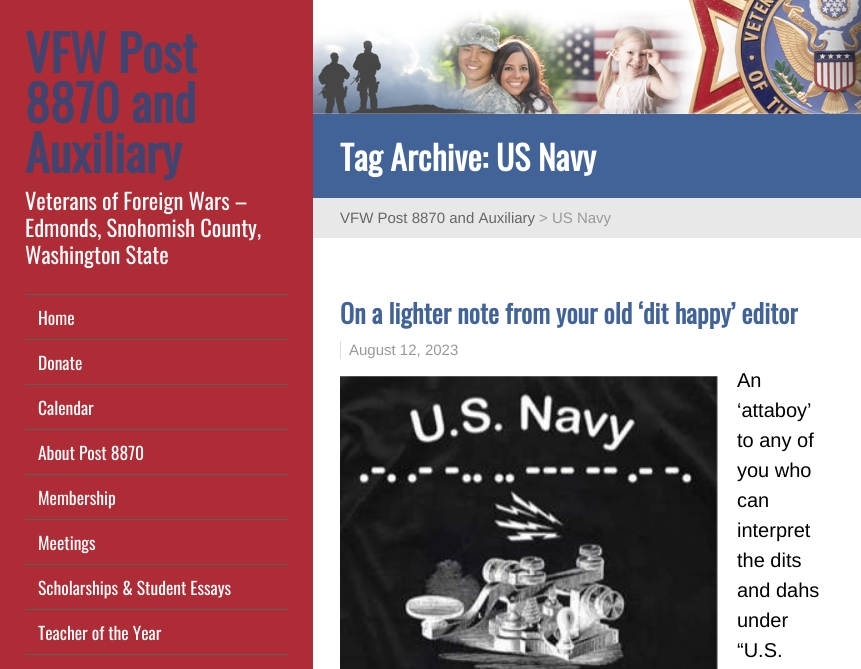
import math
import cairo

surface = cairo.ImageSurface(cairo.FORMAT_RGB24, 861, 669)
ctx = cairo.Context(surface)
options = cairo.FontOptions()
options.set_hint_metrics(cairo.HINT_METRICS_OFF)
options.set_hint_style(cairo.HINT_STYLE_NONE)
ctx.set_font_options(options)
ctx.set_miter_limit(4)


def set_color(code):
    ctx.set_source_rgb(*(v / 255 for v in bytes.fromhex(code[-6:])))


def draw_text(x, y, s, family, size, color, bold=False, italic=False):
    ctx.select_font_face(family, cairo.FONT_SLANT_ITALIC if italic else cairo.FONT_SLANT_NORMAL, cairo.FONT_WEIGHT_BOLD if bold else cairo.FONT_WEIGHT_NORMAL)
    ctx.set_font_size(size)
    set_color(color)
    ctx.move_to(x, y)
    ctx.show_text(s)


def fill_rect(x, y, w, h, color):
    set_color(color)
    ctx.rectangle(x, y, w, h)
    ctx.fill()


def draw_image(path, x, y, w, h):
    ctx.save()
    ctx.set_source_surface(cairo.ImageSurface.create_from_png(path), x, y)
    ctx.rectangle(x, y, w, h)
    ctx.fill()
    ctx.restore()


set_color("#ffffff")
ctx.paint()
fill_rect(0, 0, 313, 669, "#ae2c36")
draw_text(25, 73, "VFW Post", "Oswald", 50, "#42436e", bold=True)
draw_text(25, 123, "8870 and", "Oswald", 50, "#42436e", bold=True)
draw_text(25, 173, "Auxiliary", "Oswald", 50, "#42436e", bold=True)
draw_text(25, 210, "Veterans of Foreign Wars –", "Oswald", 22.5, "#ffffff")
draw_text(25, 237, "Edmonds, Snohomish County,", "Oswald", 22.5, "#ffffff")
draw_text(25, 264, "Washington State", "Oswald", 22.5, "#ffffff")
fill_rect(25, 294, 263, 1, "#5e5e5e")
fill_rect(25, 339, 263, 1, "#5e5e5e")
draw_text(38, 325, "Home", "Oswald", 17.5, "#ffffff")
fill_rect(25, 384, 263, 1, "#5e5e5e")
draw_text(38, 370, "Donate", "Oswald", 17.5, "#ffffff")
fill_rect(25, 429, 263, 1, "#5e5e5e")
draw_text(38, 415, "Calendar", "Oswald", 17.5, "#ffffff")
fill_rect(25, 474, 263, 1, "#5e5e5e")
draw_text(38, 460, "About Post 8870", "Oswald", 17.5, "#ffffff")
fill_rect(25, 519, 263, 1, "#5e5e5e")
draw_text(38, 505, "Membership", "Oswald", 17.5, "#ffffff")
fill_rect(25, 564, 263, 1, "#5e5e5e")
draw_text(38, 550, "Meetings", "Oswald", 17.5, "#ffffff")
fill_rect(25, 609, 263, 1, "#5e5e5e")
draw_text(38, 595, "Scholarships & Student Essays", "Oswald", 17.5, "#ffffff")
fill_rect(25, 654, 263, 1, "#5e5e5e")
draw_text(38, 640, "Teacher of the Year", "Oswald", 17.5, "#ffffff")
draw_image("assets/img1.png", 313, 0, 548, 114)
fill_rect(313, 114, 548, 84, "#426398")
draw_text(340, 171, "Tag Archive: US Navy", "Oswald", 33.75, "#ffffff", bold=True)
fill_rect(313, 198, 548, 40, "#e8e8e8")
draw_text(340, 223, "VFW Post 8870 and Auxiliary", "Liberation Sans", 15, "#666666")
draw_text(539, 223, "> US Navy", "Liberation Sans", 15, "#999999")
draw_text(340, 324, "On a lighter note from your old ‘dit happy’ editor", "Oswald", 26.25, "#426398", bold=True)
draw_text(349, 355, "August 12, 2023", "Liberation Sans", 15, "#999999")
fill_rect(340, 341, 1, 18, "#dbdbdb")
draw_image("assets/img2.png", 340, 376, 378, 293)
draw_text(737, 387, "An", "Liberation Sans", 20, "#000000")
draw_text(737, 417, "‘attaboy’", "Liberation Sans", 20, "#000000")
draw_text(737, 447, "to any of", "Liberation Sans", 20, "#000000")
draw_text(737, 477, "you who", "Liberation Sans", 20, "#000000")
draw_text(737, 507, "can", "Liberation Sans", 20, "#000000")
draw_text(737, 537, "interpret", "Liberation Sans", 20, "#000000")
draw_text(737, 567, "the dits", "Liberation Sans", 20, "#000000")
draw_text(737, 597, "and dahs", "Liberation Sans", 20, "#000000")
draw_text(737, 627, "under", "Liberation Sans", 20, "#000000")
draw_text(737, 657, "“U.S.", "Liberation Sans", 20, "#000000")
surface.write_to_png("output.png")
